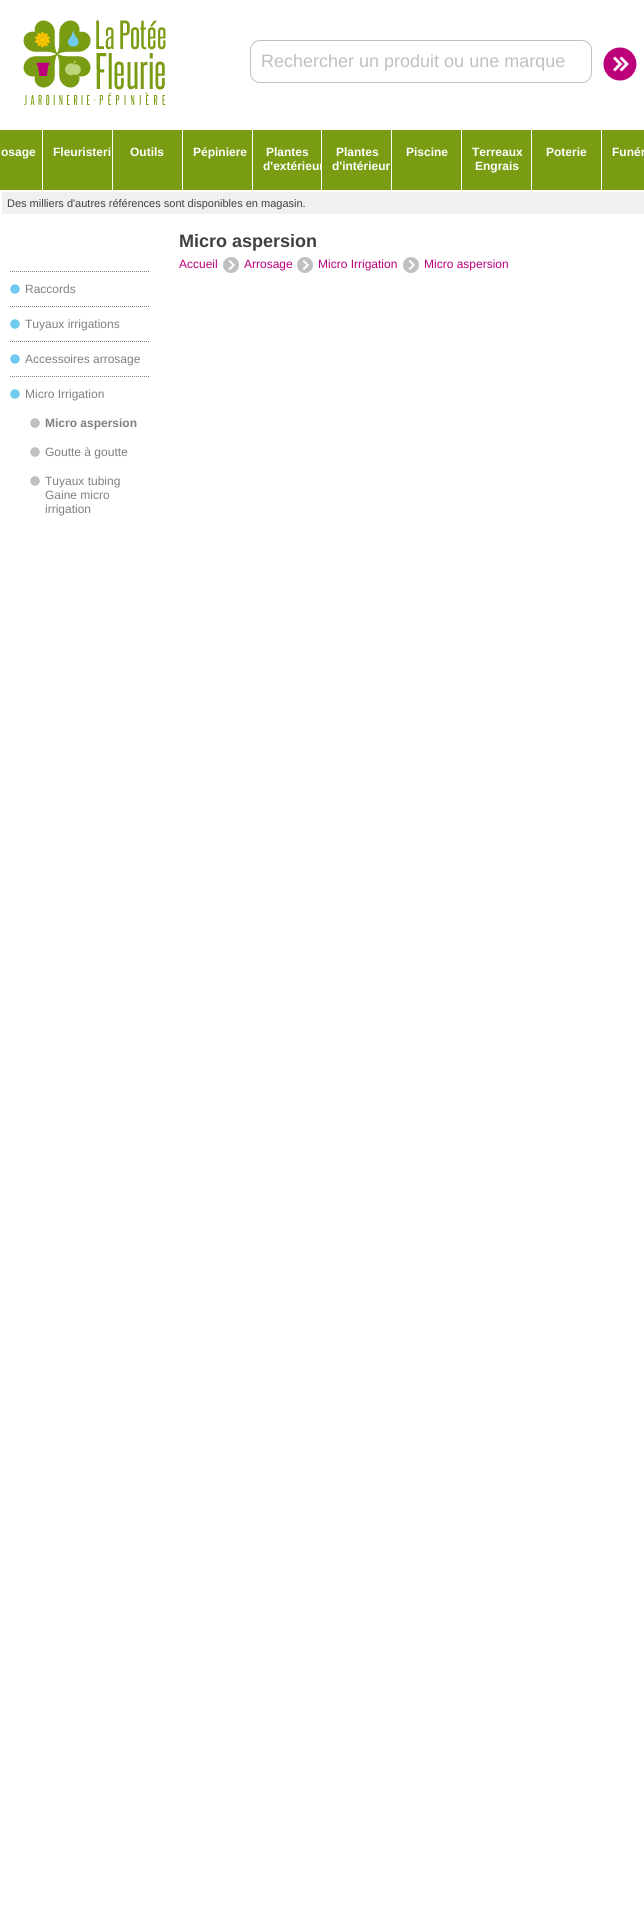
import math
import cairo

surface = cairo.ImageSurface(cairo.FORMAT_RGB24, 644, 1925)
ctx = cairo.Context(surface)
options = cairo.FontOptions()
options.set_hint_metrics(cairo.HINT_METRICS_OFF)
options.set_hint_style(cairo.HINT_STYLE_NONE)
ctx.set_font_options(options)
ctx.set_miter_limit(4)


def set_color(code):
    ctx.set_source_rgb(*(v / 255 for v in bytes.fromhex(code[-6:])))


def draw_text(x, y, s, family, size, color, bold=False, italic=False):
    ctx.select_font_face(family, cairo.FONT_SLANT_ITALIC if italic else cairo.FONT_SLANT_NORMAL, cairo.FONT_WEIGHT_BOLD if bold else cairo.FONT_WEIGHT_NORMAL)
    ctx.set_font_size(size)
    set_color(color)
    ctx.move_to(x, y)
    ctx.show_text(s)


def fill_rect(x, y, w, h, color):
    set_color(color)
    ctx.rectangle(x, y, w, h)
    ctx.fill()


def rounded_rect(x, y, w, h, r):
    ctx.new_sub_path()
    for i, (u, v) in enumerate([(x + w - r, y + h - r), (x + r, y + h - r), (x + r, y + r), (x + w - r, y + r)]):
        ctx.arc(u, v, r, i * math.pi / 2, (i + 1) * math.pi / 2)
    ctx.close_path()


def draw_image(path, x, y, w, h):
    ctx.save()
    ctx.set_source_surface(cairo.ImageSurface.create_from_png(path), x, y)
    ctx.rectangle(x, y, w, h)
    ctx.fill()
    ctx.restore()


set_color("#ffffff")
ctx.paint()
draw_image("assets/img1.png", 23, 20, 143, 85)
rounded_rect(250.5, 40.5, 341, 42, 9.5)
set_color("#c0c0c0")
ctx.set_line_width(1)
ctx.stroke()
draw_text(261, 67, "Rechercher un produit ou une marque", "Liberation Sans", 18, "#c0c0c0")
draw_image("assets/img2.png", 603, 47, 34, 34)
fill_rect(0, 130, 42, 60, "#7a9c12")
draw_text(1, 156, "osage", "Liberation Sans", 12, "#ffffff", bold=True)
fill_rect(43, 130, 69, 60, "#7a9c12")
draw_text(53, 156, "Fleuristeri", "Liberation Sans", 12, "#ffffff", bold=True)
fill_rect(113, 130, 69, 60, "#7a9c12")
draw_text(130, 156, "Outils", "Liberation Sans", 12, "#ffffff", bold=True)
fill_rect(183, 130, 69, 60, "#7a9c12")
draw_text(193, 156, "Pépiniere", "Liberation Sans", 12, "#ffffff", bold=True)
fill_rect(253, 130, 68, 60, "#7a9c12")
draw_text(266, 156, "Plantes", "Liberation Sans", 12, "#ffffff", bold=True)
draw_text(263, 170, "d'extérieur", "Liberation Sans", 12, "#ffffff", bold=True)
fill_rect(322, 130, 69, 60, "#7a9c12")
draw_text(336, 156, "Plantes", "Liberation Sans", 12, "#ffffff", bold=True)
draw_text(332, 170, "d'intérieur", "Liberation Sans", 12, "#ffffff", bold=True)
fill_rect(392, 130, 69, 60, "#7a9c12")
draw_text(406, 156, "Piscine", "Liberation Sans", 12, "#ffffff", bold=True)
fill_rect(462, 130, 69, 60, "#7a9c12")
draw_text(472, 156, "Terreaux", "Liberation Sans", 12, "#ffffff", bold=True)
draw_text(475, 170, "Engrais", "Liberation Sans", 12, "#ffffff", bold=True)
fill_rect(532, 130, 69, 60, "#7a9c12")
draw_text(546, 156, "Poterie", "Liberation Sans", 12, "#ffffff", bold=True)
fill_rect(602, 130, 42, 60, "#7a9c12")
draw_text(612, 156, "Funér", "Liberation Sans", 12, "#ffffff", bold=True)
fill_rect(2, 192, 642, 22, "#f0f0f0")
draw_text(7, 207, "Des milliers d'autres références sont disponibles en magasin.", "Liberation Sans", 11, "#404040")
draw_text(179, 247, "Micro aspersion", "Liberation Sans", 18, "#404040", bold=True)
draw_text(179, 268, "Accueil", "Liberation Sans", 12, "#bd007b")
draw_image("assets/img3.png", 223, 257, 16, 16)
draw_text(244, 268, "Arrosage", "Liberation Sans", 12, "#bd007b")
draw_image("assets/img3.png", 297, 257, 16, 16)
draw_text(318, 268, "Micro Irrigation", "Liberation Sans", 12, "#bd007b")
draw_image("assets/img3.png", 403, 257, 16, 16)
draw_text(424, 268, "Micro aspersion", "Liberation Sans", 12, "#bd007b")
draw_image("assets/img4.png", 10, 284, 10, 10)
ctx.new_path()
ctx.move_to(10, 271.5)
ctx.line_to(150, 271.5)
set_color("#808080")
ctx.set_dash([1, 1])
ctx.stroke()
draw_text(25, 293, "Raccords", "Liberation Sans", 12, "#808080")
draw_image("assets/img4.png", 10, 319, 10, 10)
ctx.new_path()
ctx.move_to(10, 306.5)
ctx.line_to(150, 306.5)
ctx.stroke()
draw_text(25, 328, "Tuyaux irrigations", "Liberation Sans", 12, "#808080")
draw_image("assets/img4.png", 10, 354, 10, 10)
ctx.new_path()
ctx.move_to(10, 341.5)
ctx.line_to(150, 341.5)
ctx.stroke()
draw_text(25, 363, "Accessoires arrosage", "Liberation Sans", 12, "#808080")
draw_image("assets/img4.png", 10, 389, 10, 10)
ctx.new_path()
ctx.move_to(10, 376.5)
ctx.line_to(150, 376.5)
ctx.stroke()
draw_text(25, 398, "Micro Irrigation", "Liberation Sans", 12, "#808080")
draw_image("assets/img5.png", 30, 418, 10, 10)
draw_text(45, 427, "Micro aspersion", "Liberation Sans", 12, "#808080", bold=True)
draw_image("assets/img5.png", 30, 447, 10, 10)
draw_text(45, 456, "Goutte à goutte", "Liberation Sans", 12, "#808080")
draw_image("assets/img5.png", 30, 476, 10, 10)
draw_text(45, 485, "Tuyaux tubing", "Liberation Sans", 12, "#808080")
draw_text(45, 499, "Gaine micro", "Liberation Sans", 12, "#808080")
draw_text(45, 513, "irrigation", "Liberation Sans", 12, "#808080")
surface.write_to_png("output.png")
